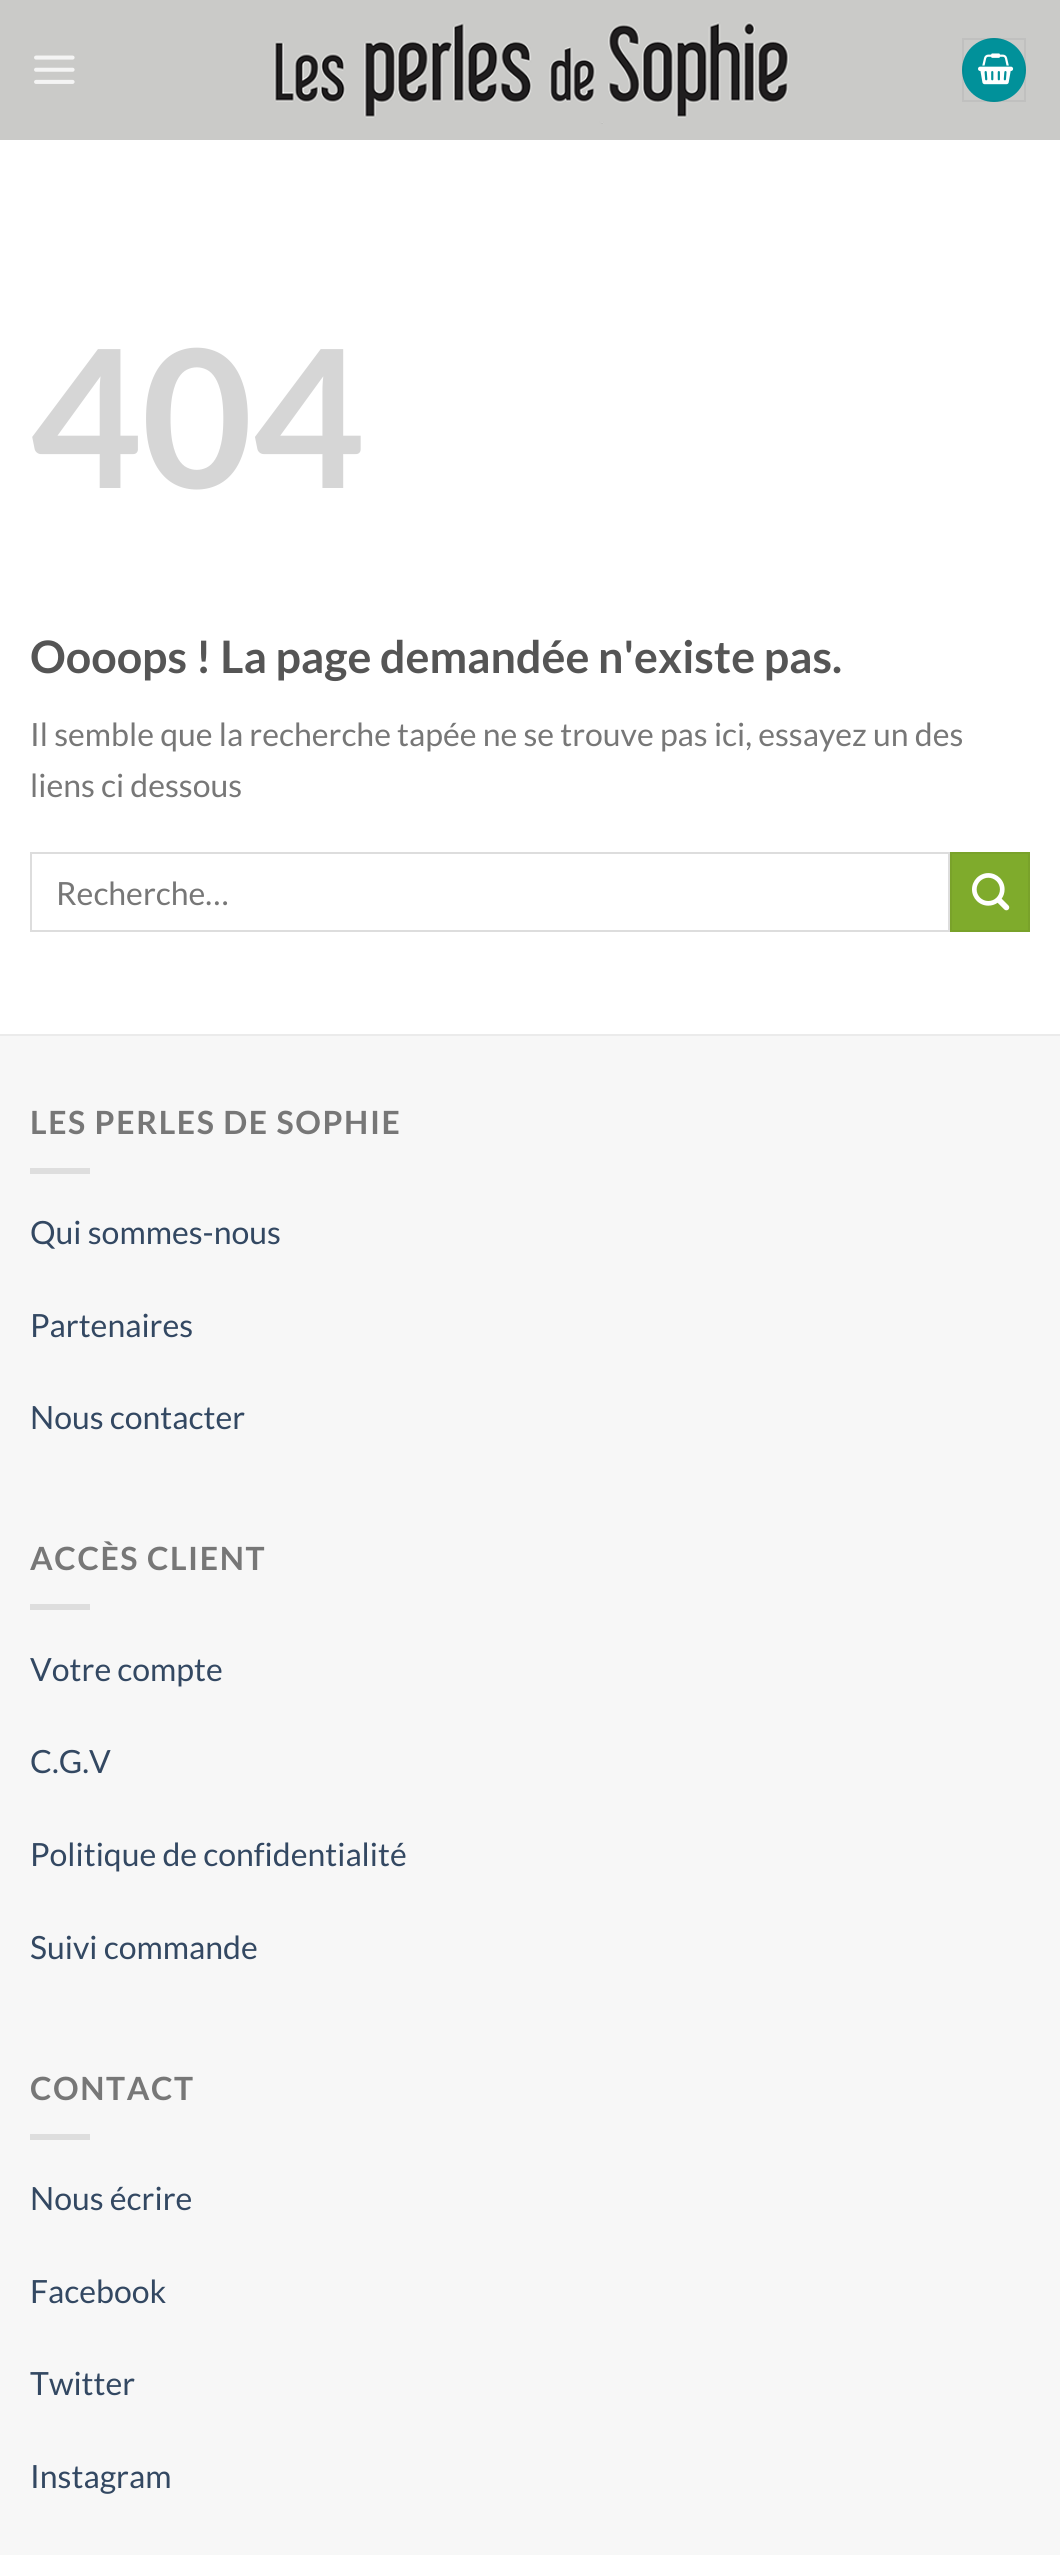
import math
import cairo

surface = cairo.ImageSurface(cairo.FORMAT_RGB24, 1060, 2555)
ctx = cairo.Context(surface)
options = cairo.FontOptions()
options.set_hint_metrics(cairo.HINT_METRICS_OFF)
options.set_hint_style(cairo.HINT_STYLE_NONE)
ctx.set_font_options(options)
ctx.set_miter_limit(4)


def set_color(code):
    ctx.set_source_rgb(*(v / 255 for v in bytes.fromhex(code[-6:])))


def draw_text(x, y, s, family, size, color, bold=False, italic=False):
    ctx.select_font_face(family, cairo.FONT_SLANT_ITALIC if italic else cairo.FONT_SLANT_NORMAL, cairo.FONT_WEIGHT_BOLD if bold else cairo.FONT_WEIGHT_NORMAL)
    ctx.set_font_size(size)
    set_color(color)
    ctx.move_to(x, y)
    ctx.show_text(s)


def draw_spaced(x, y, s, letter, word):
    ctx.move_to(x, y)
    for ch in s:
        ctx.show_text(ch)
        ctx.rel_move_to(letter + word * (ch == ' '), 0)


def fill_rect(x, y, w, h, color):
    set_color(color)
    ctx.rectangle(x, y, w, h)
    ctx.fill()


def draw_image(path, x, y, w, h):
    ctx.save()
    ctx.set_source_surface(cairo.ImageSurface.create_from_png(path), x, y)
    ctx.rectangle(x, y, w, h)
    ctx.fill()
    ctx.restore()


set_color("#ffffff")
ctx.paint()
fill_rect(0, 0, 1060, 140, "#cacac8")
draw_image("assets/img1.png", 34, 55, 41, 29)
draw_image("assets/img2.png", 274, 22, 515, 102)
set_color("#01919a")
ctx.arc(994, 70, 32, 0, 2 * math.pi)
ctx.fill()
ctx.rectangle(963, 39, 62, 62)
ctx.set_source_rgba(0, 0, 0, 0.05)
ctx.stroke()
draw_image("assets/img3.png", 978, 53, 36, 32)
draw_text(30, 488, "404", "Lato", 192, "#d6d6d6", bold=True)
draw_text(30, 673, "Oooops ! La page demandée n'existe pas.", "Lato", 44.75, "#555555", bold=True)
draw_text(30, 746, "Il semble que la recherche tapée ne se trouve pas ici, essayez un des", "Lato", 32, "#777777")
draw_text(30, 797, "liens ci dessous", "Lato", 32, "#777777")
ctx.rectangle(31, 853, 918, 78)
set_color("#dddddd")
ctx.stroke()
draw_text(56, 905, "Recherche…", "Lato", 32, "#777777")
set_color("#7fab2c")
ctx.rectangle(951, 853, 78, 78)
ctx.fill_preserve()
set_color("#79a22a")
ctx.stroke()
draw_image("assets/img4.png", 972, 873, 38, 38)
fill_rect(0, 1036, 1060, 1519, "#f7f7f7")
fill_rect(0, 1034, 1060, 2, "#ebebeb")
ctx.select_font_face("Lato", cairo.FONT_SLANT_NORMAL, cairo.FONT_WEIGHT_BOLD)
set_color("#777777")
draw_spaced(30, 1134, "LES PERLES DE SOPHIE", 1.6, 0)
fill_rect(30, 1168, 60, 6, "#dedede")
draw_text(30, 1244, "Qui sommes-nous", "Lato", 32, "#334862")
draw_text(30, 1337, "Partenaires", "Lato", 32, "#334862")
draw_text(30, 1429, "Nous contacter", "Lato", 32, "#334862")
ctx.select_font_face("Lato", cairo.FONT_SLANT_NORMAL, cairo.FONT_WEIGHT_BOLD)
set_color("#777777")
draw_spaced(30, 1570, "ACCÈS CLIENT", 1.6, 0)
fill_rect(30, 1604, 60, 6, "#dedede")
draw_text(30, 1681, "Votre compte", "Lato", 32, "#334862")
draw_text(30, 1773, "C.G.V", "Lato", 32, "#334862")
draw_text(30, 1866, "Politique de confidentialité", "Lato", 32, "#334862")
draw_text(30, 1959, "Suivi commande", "Lato", 32, "#334862")
ctx.select_font_face("Lato", cairo.FONT_SLANT_NORMAL, cairo.FONT_WEIGHT_BOLD)
set_color("#777777")
draw_spaced(30, 2100, "CONTACT", 1.6, 0)
fill_rect(30, 2134, 60, 6, "#dedede")
draw_text(30, 2210, "Nous écrire", "Lato", 32, "#334862")
draw_text(30, 2303, "Facebook", "Lato", 32, "#334862")
draw_text(30, 2395, "Twitter", "Lato", 32, "#334862")
draw_text(30, 2488, "Instagram", "Lato", 32, "#334862")
surface.write_to_png("output.png")
